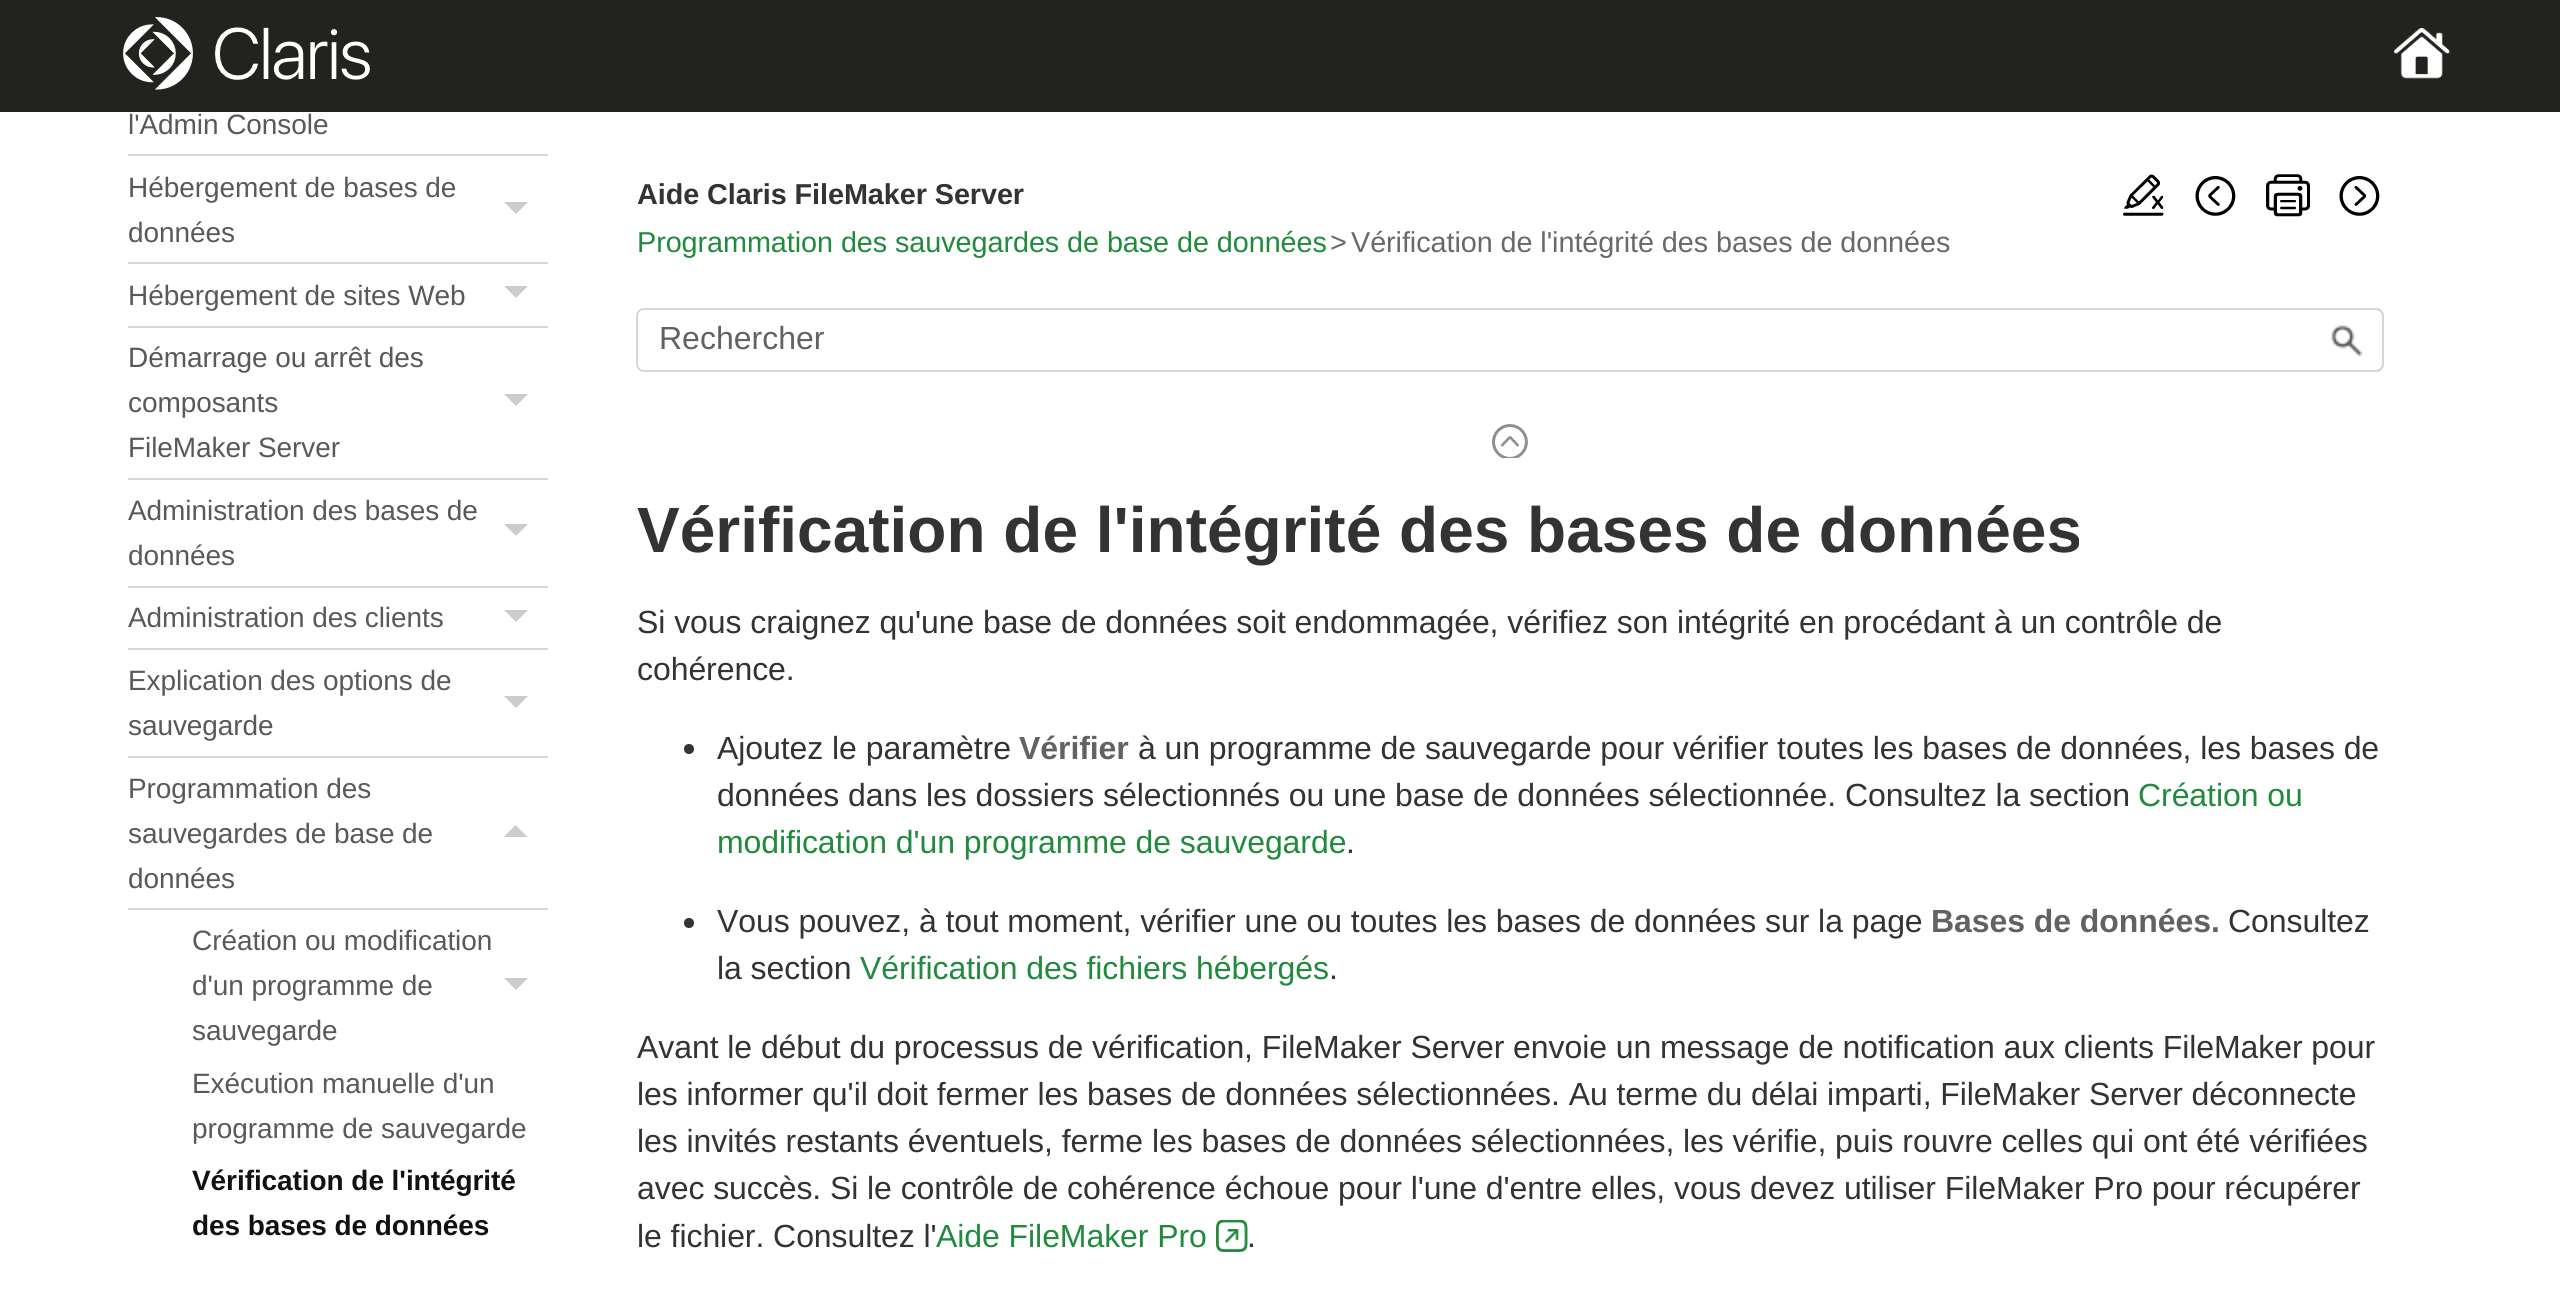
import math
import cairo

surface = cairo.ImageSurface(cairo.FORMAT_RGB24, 2560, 1295)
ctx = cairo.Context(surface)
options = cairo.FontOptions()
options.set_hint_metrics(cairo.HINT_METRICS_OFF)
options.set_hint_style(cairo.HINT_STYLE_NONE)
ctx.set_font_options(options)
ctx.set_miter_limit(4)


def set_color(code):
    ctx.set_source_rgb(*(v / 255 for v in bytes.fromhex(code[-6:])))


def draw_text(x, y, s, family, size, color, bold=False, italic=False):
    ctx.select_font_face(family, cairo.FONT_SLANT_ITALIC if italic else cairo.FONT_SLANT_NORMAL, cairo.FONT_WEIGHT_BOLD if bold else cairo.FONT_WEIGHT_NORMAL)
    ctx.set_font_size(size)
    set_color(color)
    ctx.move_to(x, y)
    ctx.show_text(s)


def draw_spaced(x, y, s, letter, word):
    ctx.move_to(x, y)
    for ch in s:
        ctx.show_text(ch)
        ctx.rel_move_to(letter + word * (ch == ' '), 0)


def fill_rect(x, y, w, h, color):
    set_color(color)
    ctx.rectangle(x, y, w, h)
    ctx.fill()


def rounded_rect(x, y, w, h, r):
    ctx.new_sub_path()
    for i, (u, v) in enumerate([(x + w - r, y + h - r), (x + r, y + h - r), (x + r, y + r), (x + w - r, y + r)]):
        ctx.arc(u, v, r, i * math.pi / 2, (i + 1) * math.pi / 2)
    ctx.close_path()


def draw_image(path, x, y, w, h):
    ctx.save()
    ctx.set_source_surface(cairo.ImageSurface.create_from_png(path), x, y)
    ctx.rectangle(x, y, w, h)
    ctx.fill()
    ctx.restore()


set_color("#ffffff")
ctx.paint()
fill_rect(0, 0, 2560, 112, "#22221f")
draw_image("assets/img1.png", 123, 17, 247, 73)
draw_image("assets/img2.png", 2394, 28, 56, 51)
fill_rect(128, 154, 420, 2, "#d6d6d6")
ctx.select_font_face("Liberation Sans")
ctx.set_font_size(28)
set_color("#595959")
draw_spaced(128, 134, "l'Admin Console", -0.07, 0)
fill_rect(128, 262, 420, 2, "#d6d6d6")
set_color("#595959")
draw_spaced(128, 197, "Hébergement de bases de", -0.07, 0)
set_color("#cccccc")
ctx.new_path()
ctx.move_to(504, 202)
ctx.line_to(528, 202)
ctx.line_to(516, 214)
ctx.close_path()
ctx.fill()
set_color("#595959")
draw_spaced(128, 242, "données", -0.07, 0)
fill_rect(128, 326, 420, 2, "#d6d6d6")
set_color("#595959")
draw_spaced(128, 305, "Hébergement de sites Web", -0.07, 0)
set_color("#cccccc")
ctx.new_path()
ctx.move_to(504, 286)
ctx.line_to(528, 286)
ctx.line_to(516, 298)
ctx.close_path()
ctx.fill()
fill_rect(128, 478, 420, 2, "#d6d6d6")
set_color("#595959")
draw_spaced(128, 367, "Démarrage ou arrêt des", -0.07, 0)
draw_spaced(128, 412, "composants", -0.07, 0)
set_color("#cccccc")
ctx.new_path()
ctx.move_to(504, 394)
ctx.line_to(528, 394)
ctx.line_to(516, 406)
ctx.close_path()
ctx.fill()
set_color("#595959")
draw_spaced(128, 457, "FileMaker Server", -0.07, 0)
fill_rect(128, 586, 420, 2, "#d6d6d6")
set_color("#595959")
draw_spaced(128, 520, "Administration des bases de", -0.07, 0)
set_color("#cccccc")
ctx.new_path()
ctx.move_to(504, 524)
ctx.line_to(528, 524)
ctx.line_to(516, 536)
ctx.close_path()
ctx.fill()
set_color("#595959")
draw_spaced(128, 565, "données", -0.07, 0)
fill_rect(128, 648, 420, 2, "#d6d6d6")
set_color("#595959")
draw_spaced(128, 627, "Administration des clients", -0.07, 0)
set_color("#cccccc")
ctx.new_path()
ctx.move_to(504, 610)
ctx.line_to(528, 610)
ctx.line_to(516, 622)
ctx.close_path()
ctx.fill()
fill_rect(128, 756, 420, 2, "#d6d6d6")
set_color("#595959")
draw_spaced(128, 690, "Explication des options de", -0.07, 0)
set_color("#cccccc")
ctx.new_path()
ctx.move_to(504, 696)
ctx.line_to(528, 696)
ctx.line_to(516, 708)
ctx.close_path()
ctx.fill()
set_color("#595959")
draw_spaced(128, 735, "sauvegarde", -0.07, 0)
fill_rect(128, 908, 420, 2, "#d6d6d6")
set_color("#595959")
draw_spaced(128, 798, "Programmation des", -0.07, 0)
draw_spaced(128, 843, "sauvegardes de base de", -0.07, 0)
set_color("#cccccc")
ctx.new_path()
ctx.move_to(503.5, 837)
ctx.line_to(527.5, 837)
ctx.line_to(515.5, 825)
ctx.close_path()
ctx.fill()
set_color("#595959")
draw_spaced(128, 888, "données", -0.07, 0)
draw_spaced(192, 950, "Création ou modification", -0.07, 0)
draw_spaced(192, 995, "d'un programme de", -0.07, 0)
set_color("#cccccc")
ctx.new_path()
ctx.move_to(504, 978)
ctx.line_to(528, 978)
ctx.line_to(516, 990)
ctx.close_path()
ctx.fill()
set_color("#595959")
draw_spaced(192, 1040, "sauvegarde", -0.07, 0)
draw_spaced(192, 1093, "Exécution manuelle d'un", -0.07, 0)
draw_spaced(192, 1138, "programme de sauvegarde", -0.07, 0)
ctx.select_font_face("Liberation Sans", cairo.FONT_SLANT_NORMAL, cairo.FONT_WEIGHT_BOLD)
set_color("#111111")
draw_spaced(192, 1190, "Vérification de l'intégrité", -0.07, 0)
draw_spaced(192, 1235, "des bases de données", -0.07, 0)
ctx.set_font_size(28.8)
set_color("#333333")
draw_spaced(637, 204, "Aide Claris FileMaker Server", -0.07, 0)
draw_image("assets/img3.png", 2123, 174, 41, 42)
draw_image("assets/img4.png", 2195, 176, 41, 40)
draw_image("assets/img5.png", 2266, 174, 44, 43)
draw_image("assets/img6.png", 2339, 176, 41, 40)
ctx.select_font_face("Liberation Sans")
set_color("#208a3d")
draw_spaced(637, 252, "Programmation des sauvegardes de base de données", -0.07, 0)
set_color("#696969")
draw_spaced(1330, 252, ">", -0.07, 0)
draw_spaced(1351, 252, "Vérification de l'intégrité des bases de données", -0.07, 0)
rounded_rect(637, 309, 1746, 62, 7)
set_color("#d6d6d6")
ctx.stroke()
draw_text(659, 349, "Rechercher", "Liberation Sans", 32, "#626262")
draw_image("assets/img7.png", 2331, 325, 32, 32)
set_color("#d6d6d6")
ctx.set_fill_rule(cairo.FILL_RULE_EVEN_ODD)
ctx.new_path()
ctx.move_to(2312, 308)
ctx.line_to(2376, 308)
ctx.curve_to(2380, 308, 2384, 312, 2384, 316)
ctx.line_to(2384, 364)
ctx.curve_to(2384, 368, 2380, 372, 2376, 372)
ctx.line_to(2312, 372)
ctx.close_path()
ctx.move_to(2312, 310)
ctx.line_to(2376, 310)
ctx.curve_to(2379, 310, 2382, 313, 2382, 316)
ctx.line_to(2382, 364)
ctx.curve_to(2382, 367, 2379, 370, 2376, 370)
ctx.line_to(2312, 370)
ctx.close_path()
ctx.fill()
draw_image("assets/img8.png", 1492, 424, 36, 34)
draw_text(637, 552, "Vérification de l'intégrité des bases de données", "Liberation Sans", 64, "#333333", bold=True)
ctx.select_font_face("Liberation Sans")
ctx.set_font_size(32)
draw_spaced(637, 633, "Si vous craignez qu'une base de données soit endommagée, vérifiez son intégrité en procédant à un contrôle de", -0.07, 0)
draw_spaced(637, 680, "cohérence.", -0.07, 0)
ctx.new_path()
ctx.arc(689, 749, 5, 0, 2 * math.pi)
ctx.fill()
draw_spaced(717, 759, "Ajoutez le paramètre", -0.07, 0)
ctx.select_font_face("Liberation Sans", cairo.FONT_SLANT_NORMAL, cairo.FONT_WEIGHT_BOLD)
set_color("#626262")
draw_spaced(1019, 759, "Vérifier", -0.07, 0)
ctx.select_font_face("Liberation Sans")
set_color("#333333")
draw_spaced(1138, 759, "à un programme de sauvegarde pour vérifier toutes les bases de données, les bases de", -0.07, 0)
draw_spaced(717, 806, "données dans les dossiers sélectionnés ou une base de données sélectionnée. Consultez la section", -0.07, 0)
set_color("#208a3d")
draw_spaced(2138, 806, "Création ou", -0.07, 0)
draw_spaced(717, 853, "modification d'un programme de sauvegarde", -0.07, 0)
set_color("#333333")
draw_spaced(1346, 853, ".", -0.07, 0)
ctx.new_path()
ctx.arc(689, 923, 5, 0, 2 * math.pi)
ctx.fill()
draw_spaced(717, 932, "Vous pouvez, à tout moment, vérifier une ou toutes les bases de données sur la page", -0.07, 0)
ctx.select_font_face("Liberation Sans", cairo.FONT_SLANT_NORMAL, cairo.FONT_WEIGHT_BOLD)
set_color("#626262")
draw_spaced(1931, 932, "Bases de données.", -0.07, 0)
ctx.select_font_face("Liberation Sans")
set_color("#333333")
draw_spaced(2228, 932, "Consultez", -0.07, 0)
draw_spaced(717, 979, "la section", -0.07, 0)
set_color("#208a3d")
draw_spaced(860, 979, "Vérification des fichiers hébergés", -0.07, 0)
set_color("#333333")
draw_spaced(1329, 979, ".", -0.07, 0)
draw_spaced(637, 1058, "Avant le début du processus de vérification, FileMaker Server envoie un message de notification aux clients FileMaker pour", -0.07, 0)
draw_spaced(637, 1105, "les informer qu'il doit fermer les bases de données sélectionnées. Au terme du délai imparti, FileMaker Server déconnecte", -0.07, 0)
draw_spaced(637, 1152, "les invités restants éventuels, ferme les bases de données sélectionnées, les vérifie, puis rouvre celles qui ont été vérifiées", -0.07, 0)
draw_spaced(637, 1199, "avec succès. Si le contrôle de cohérence échoue pour l'une d'entre elles, vous devez utiliser FileMaker Pro pour récupérer", -0.07, 0)
draw_spaced(637, 1247, "le fichier. Consultez l'", -0.07, 0)
set_color("#208a3d")
draw_spaced(936, 1247, "Aide FileMaker Pro", -0.07, 0)
draw_image("assets/img9.png", 1216, 1220, 32, 32)
set_color("#333333")
draw_spaced(1247, 1247, ".", -0.07, 0)
surface.write_to_png("output.png")
